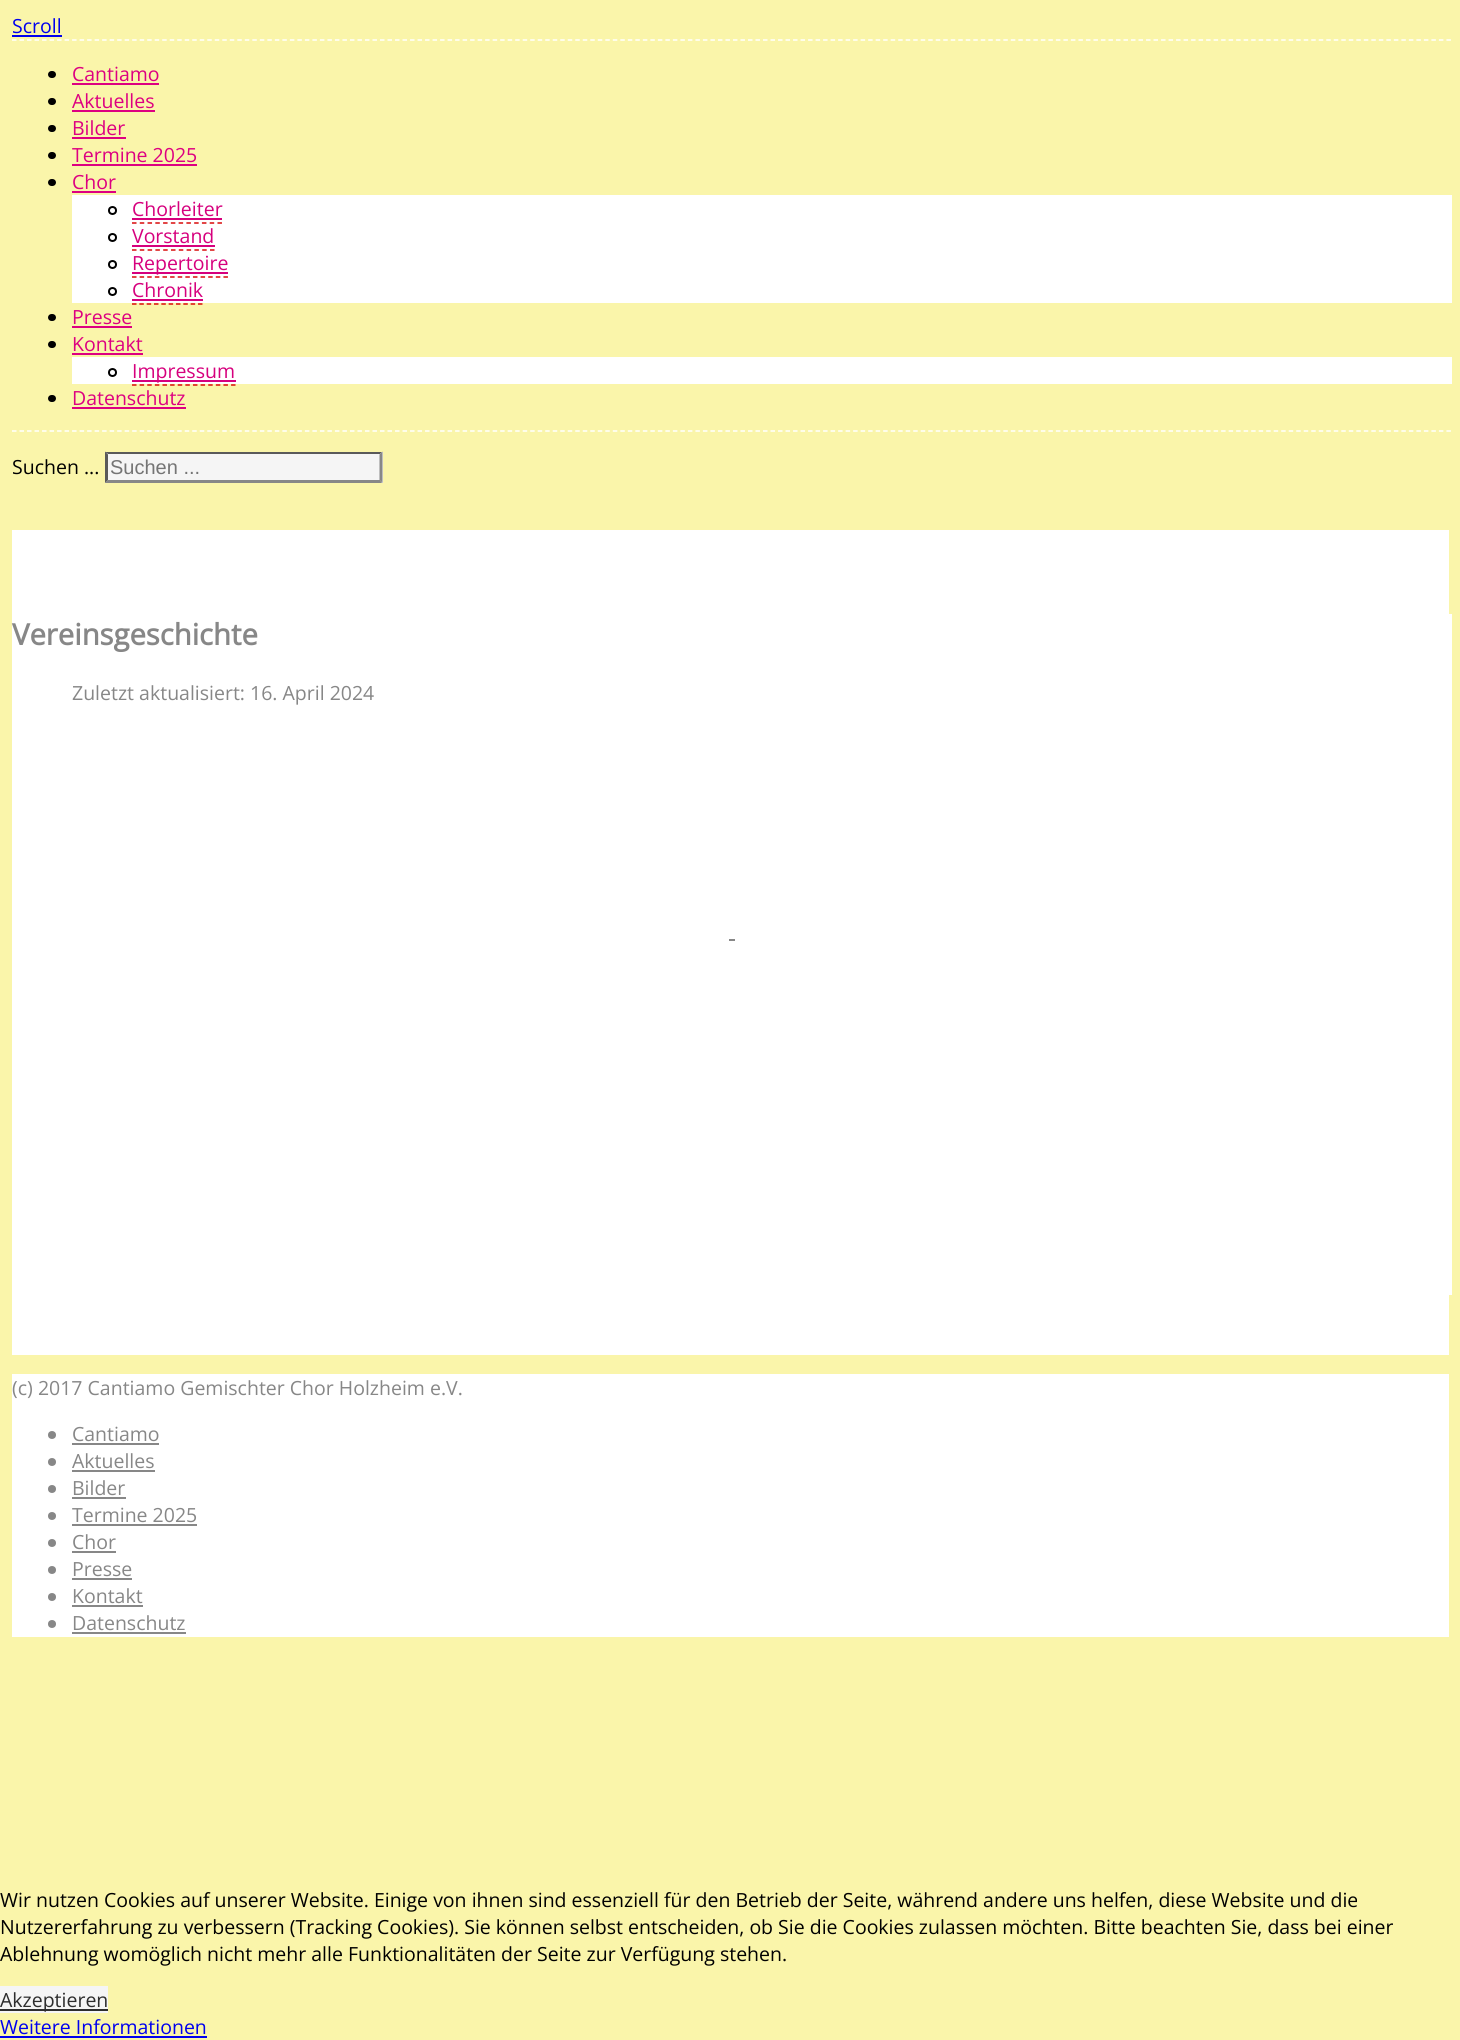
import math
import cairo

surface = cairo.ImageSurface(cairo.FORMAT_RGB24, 1460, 2040)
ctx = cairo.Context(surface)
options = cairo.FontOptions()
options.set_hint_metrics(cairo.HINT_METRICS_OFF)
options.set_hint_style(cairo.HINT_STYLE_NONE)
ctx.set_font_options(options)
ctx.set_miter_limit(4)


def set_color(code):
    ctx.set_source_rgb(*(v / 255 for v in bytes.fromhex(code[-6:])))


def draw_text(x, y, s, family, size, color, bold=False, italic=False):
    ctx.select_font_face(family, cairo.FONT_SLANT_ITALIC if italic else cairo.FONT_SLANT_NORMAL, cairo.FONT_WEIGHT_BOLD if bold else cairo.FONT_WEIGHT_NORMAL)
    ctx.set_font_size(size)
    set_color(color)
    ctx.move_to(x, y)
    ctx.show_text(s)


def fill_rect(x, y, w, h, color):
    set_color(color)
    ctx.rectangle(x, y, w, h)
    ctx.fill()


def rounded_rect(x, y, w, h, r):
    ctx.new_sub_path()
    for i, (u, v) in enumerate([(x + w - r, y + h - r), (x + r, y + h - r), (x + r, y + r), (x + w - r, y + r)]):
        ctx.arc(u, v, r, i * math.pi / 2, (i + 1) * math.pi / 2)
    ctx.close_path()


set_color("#faf5aa")
ctx.paint()
draw_text(12, 33, "Scroll", "Open Sans", 19.5, "#0000ee")
fill_rect(12, 35, 50, 2, "#0000ee")
ctx.new_path()
ctx.move_to(12, 40)
ctx.line_to(1452, 40)
set_color("#ffffff")
ctx.set_line_width(1.5)
ctx.set_dash([4.5, 3.01])
ctx.stroke()
ctx.new_path()
ctx.move_to(12, 431)
ctx.line_to(1452, 431)
ctx.stroke()
set_color("#000000")
rounded_rect(48, 71, 8, 7, 3.5)
ctx.fill()
draw_text(72, 81, "Cantiamo", "Open Sans", 19.5, "#dd0081")
fill_rect(72, 83, 87, 2, "#dd0081")
set_color("#000000")
rounded_rect(48, 98, 8, 7, 3.5)
ctx.fill()
draw_text(72, 108, "Aktuelles", "Open Sans", 19.5, "#dd0081")
fill_rect(72, 110, 83, 2, "#dd0081")
set_color("#000000")
rounded_rect(48, 125, 8, 7, 3.5)
ctx.fill()
draw_text(72, 135, "Bilder", "Open Sans", 19.5, "#dd0081")
fill_rect(72, 137, 54, 2, "#dd0081")
set_color("#000000")
rounded_rect(48, 152, 8, 7, 3.5)
ctx.fill()
draw_text(72, 162, "Termine 2025", "Open Sans", 19.5, "#dd0081")
fill_rect(72, 164, 125, 2, "#dd0081")
set_color("#000000")
rounded_rect(48, 179, 8, 7, 3.5)
ctx.fill()
draw_text(72, 189, "Chor", "Open Sans", 19.5, "#dd0081")
fill_rect(72, 191, 44, 2, "#dd0081")
fill_rect(72, 195, 1380, 108, "#ffffff")
ctx.new_path()
ctx.arc(112.5, 210.5, 3.5, 0, 2 * math.pi)
set_color("#000000")
ctx.set_line_width(2)
ctx.set_dash([])
ctx.stroke()
draw_text(132, 216, "Chorleiter", "Open Sans", 19.5, "#d6007d")
ctx.new_path()
ctx.move_to(132, 223)
ctx.line_to(222, 223)
set_color("#d90909")
ctx.set_line_width(1.5)
ctx.set_dash([4.5, 3.27])
ctx.stroke()
fill_rect(132, 218, 90, 2, "#d6007d")
ctx.arc(112.5, 237.5, 3.5, 0, 2 * math.pi)
set_color("#000000")
ctx.set_line_width(2)
ctx.set_dash([])
ctx.stroke()
draw_text(132, 243, "Vorstand", "Open Sans", 19.5, "#d6007d")
ctx.new_path()
ctx.move_to(132, 250)
ctx.line_to(214.5, 250)
set_color("#d90909")
ctx.set_line_width(1.5)
ctx.set_dash([4.5, 3.3])
ctx.stroke()
fill_rect(132, 245, 83, 2, "#d6007d")
ctx.arc(112.5, 264.5, 3.5, 0, 2 * math.pi)
set_color("#000000")
ctx.set_line_width(2)
ctx.set_dash([])
ctx.stroke()
fill_rect(132, 272, 96, 2, "#d6007d")
draw_text(132, 270, "Repertoire", "Open Sans", 19.5, "#d6007d")
ctx.new_path()
ctx.move_to(132, 277)
ctx.line_to(228, 277)
set_color("#d90909")
ctx.set_line_width(1.5)
ctx.set_dash([4.5, 3.12])
ctx.stroke()
ctx.arc(112.5, 291.5, 3.5, 0, 2 * math.pi)
set_color("#000000")
ctx.set_line_width(2)
ctx.set_dash([])
ctx.stroke()
draw_text(132, 297, "Chronik", "Open Sans", 19.5, "#d6007d")
ctx.new_path()
ctx.move_to(132, 304)
ctx.line_to(202.5, 304)
set_color("#d90909")
ctx.set_line_width(1.5)
ctx.set_dash([4.5, 2.83])
ctx.stroke()
fill_rect(132, 299, 71, 2, "#d6007d")
set_color("#000000")
rounded_rect(48, 314, 8, 7, 3.5)
ctx.fill()
draw_text(72, 324, "Presse", "Open Sans", 19.5, "#dd0081")
fill_rect(72, 326, 60, 2, "#dd0081")
set_color("#000000")
rounded_rect(48, 341, 8, 7, 3.5)
ctx.fill()
draw_text(72, 351, "Kontakt", "Open Sans", 19.5, "#dd0081")
fill_rect(72, 353, 71, 2, "#dd0081")
fill_rect(72, 357, 1380, 27, "#ffffff")
ctx.new_path()
ctx.arc(112.5, 372.5, 3.5, 0, 2 * math.pi)
set_color("#000000")
ctx.set_line_width(2)
ctx.set_dash([])
ctx.stroke()
fill_rect(132, 380, 104, 2, "#d6007d")
draw_text(132, 378, "Impressum", "Open Sans", 19.5, "#d6007d")
ctx.new_path()
ctx.move_to(132, 385)
ctx.line_to(235.5, 385)
set_color("#d90909")
ctx.set_line_width(1.5)
ctx.set_dash([4.5, 3.12])
ctx.stroke()
set_color("#000000")
rounded_rect(48, 395, 8, 7, 3.5)
ctx.fill()
draw_text(72, 405, "Datenschutz", "Open Sans", 19.5, "#dd0081")
fill_rect(72, 407, 114, 2, "#dd0081")
draw_text(12, 474, "Suchen ...", "Open Sans", 19.5, "#000000")
fill_rect(105, 452, 278, 31, "#f5f5f5")
set_color("#5a5a5a")
ctx.new_path()
ctx.move_to(105, 452)
ctx.line_to(382, 452)
ctx.line_to(380, 454)
ctx.line_to(108, 454)
ctx.close_path()
ctx.fill()
set_color("#878787")
ctx.new_path()
ctx.move_to(382.5, 451.5)
ctx.line_to(382.5, 483)
ctx.line_to(379.5, 480)
ctx.line_to(379.5, 454.5)
ctx.close_path()
ctx.fill()
ctx.new_path()
ctx.move_to(382, 483)
ctx.line_to(105, 483)
ctx.line_to(108, 480)
ctx.line_to(380, 480)
ctx.close_path()
ctx.fill()
set_color("#5a5a5a")
ctx.new_path()
ctx.move_to(105, 483)
ctx.line_to(105, 451.5)
ctx.line_to(108, 454.5)
ctx.line_to(108, 480)
ctx.close_path()
ctx.fill()
draw_text(110, 474, "Suchen ...", "Liberation Sans", 20, "#757575")
fill_rect(12, 530, 1437, 825, "#ffffff")
fill_rect(1449, 614, 3, 681, "#ffffff")
draw_text(12, 645, "Vereinsgeschichte", "Open Sans", 29.25, "#878787", bold=True)
draw_text(72, 700, "Zuletzt aktualisiert: 16. April 2024", "Open Sans", 19.5, "#878787")
fill_rect(729, 939, 6, 2, "#878787")
fill_rect(12, 1374, 1437, 263, "#ffffff")
draw_text(12, 1395, "(c) 2017 Cantiamo Gemischter Chor Holzheim e.V.", "Open Sans", 19.5, "#878787")
ctx.new_path()
ctx.arc(52, 1435, 4, 0, 2 * math.pi)
ctx.fill()
draw_text(72, 1441, "Cantiamo", "Open Sans", 19.5, "#878787")
fill_rect(72, 1443, 87, 2, "#878787")
ctx.new_path()
ctx.arc(52, 1462, 4, 0, 2 * math.pi)
ctx.fill()
draw_text(72, 1468, "Aktuelles", "Open Sans", 19.5, "#878787")
fill_rect(72, 1470, 83, 2, "#878787")
ctx.new_path()
ctx.arc(52, 1489, 4, 0, 2 * math.pi)
ctx.fill()
draw_text(72, 1495, "Bilder", "Open Sans", 19.5, "#878787")
fill_rect(72, 1497, 54, 2, "#878787")
ctx.new_path()
ctx.arc(52, 1516, 4, 0, 2 * math.pi)
ctx.fill()
draw_text(72, 1522, "Termine 2025", "Open Sans", 19.5, "#878787")
fill_rect(72, 1524, 125, 2, "#878787")
ctx.new_path()
ctx.arc(52, 1543, 4, 0, 2 * math.pi)
ctx.fill()
draw_text(72, 1549, "Chor", "Open Sans", 19.5, "#878787")
fill_rect(72, 1551, 44, 2, "#878787")
ctx.new_path()
ctx.arc(52, 1570, 4, 0, 2 * math.pi)
ctx.fill()
draw_text(72, 1576, "Presse", "Open Sans", 19.5, "#878787")
fill_rect(72, 1578, 60, 2, "#878787")
ctx.new_path()
ctx.arc(52, 1597, 4, 0, 2 * math.pi)
ctx.fill()
draw_text(72, 1603, "Kontakt", "Open Sans", 19.5, "#878787")
fill_rect(72, 1605, 71, 2, "#878787")
ctx.new_path()
ctx.arc(52, 1624, 4, 0, 2 * math.pi)
ctx.fill()
draw_text(72, 1630, "Datenschutz", "Open Sans", 19.5, "#878787")
fill_rect(72, 1632, 114, 2, "#878787")
draw_text(0, 1907, "Wir nutzen Cookies auf unserer Website. Einige von ihnen sind essenziell für den Betrieb der Seite, während andere uns helfen, diese Website und die", "Open Sans", 19.5, "#000000")
draw_text(0, 1934, "Nutzererfahrung zu verbessern (Tracking Cookies). Sie können selbst entscheiden, ob Sie die Cookies zulassen möchten. Bitte beachten Sie, dass bei einer", "Open Sans", 19.5, "#000000")
draw_text(0, 1961, "Ablehnung womöglich nicht mehr alle Funktionalitäten der Seite zur Verfügung stehen.", "Open Sans", 19.5, "#000000")
fill_rect(0, 1986, 108, 27, "#f5f5f5")
fill_rect(0, 2009, 108, 2, "#2d2d2d")
draw_text(0, 2007, "Akzeptieren", "Open Sans", 19.5, "#2d2d2d")
draw_text(0, 2034, "Weitere Informationen", "Open Sans", 19.5, "#0000ee")
fill_rect(0, 2036, 207, 2, "#0000ee")
surface.write_to_png("output.png")
